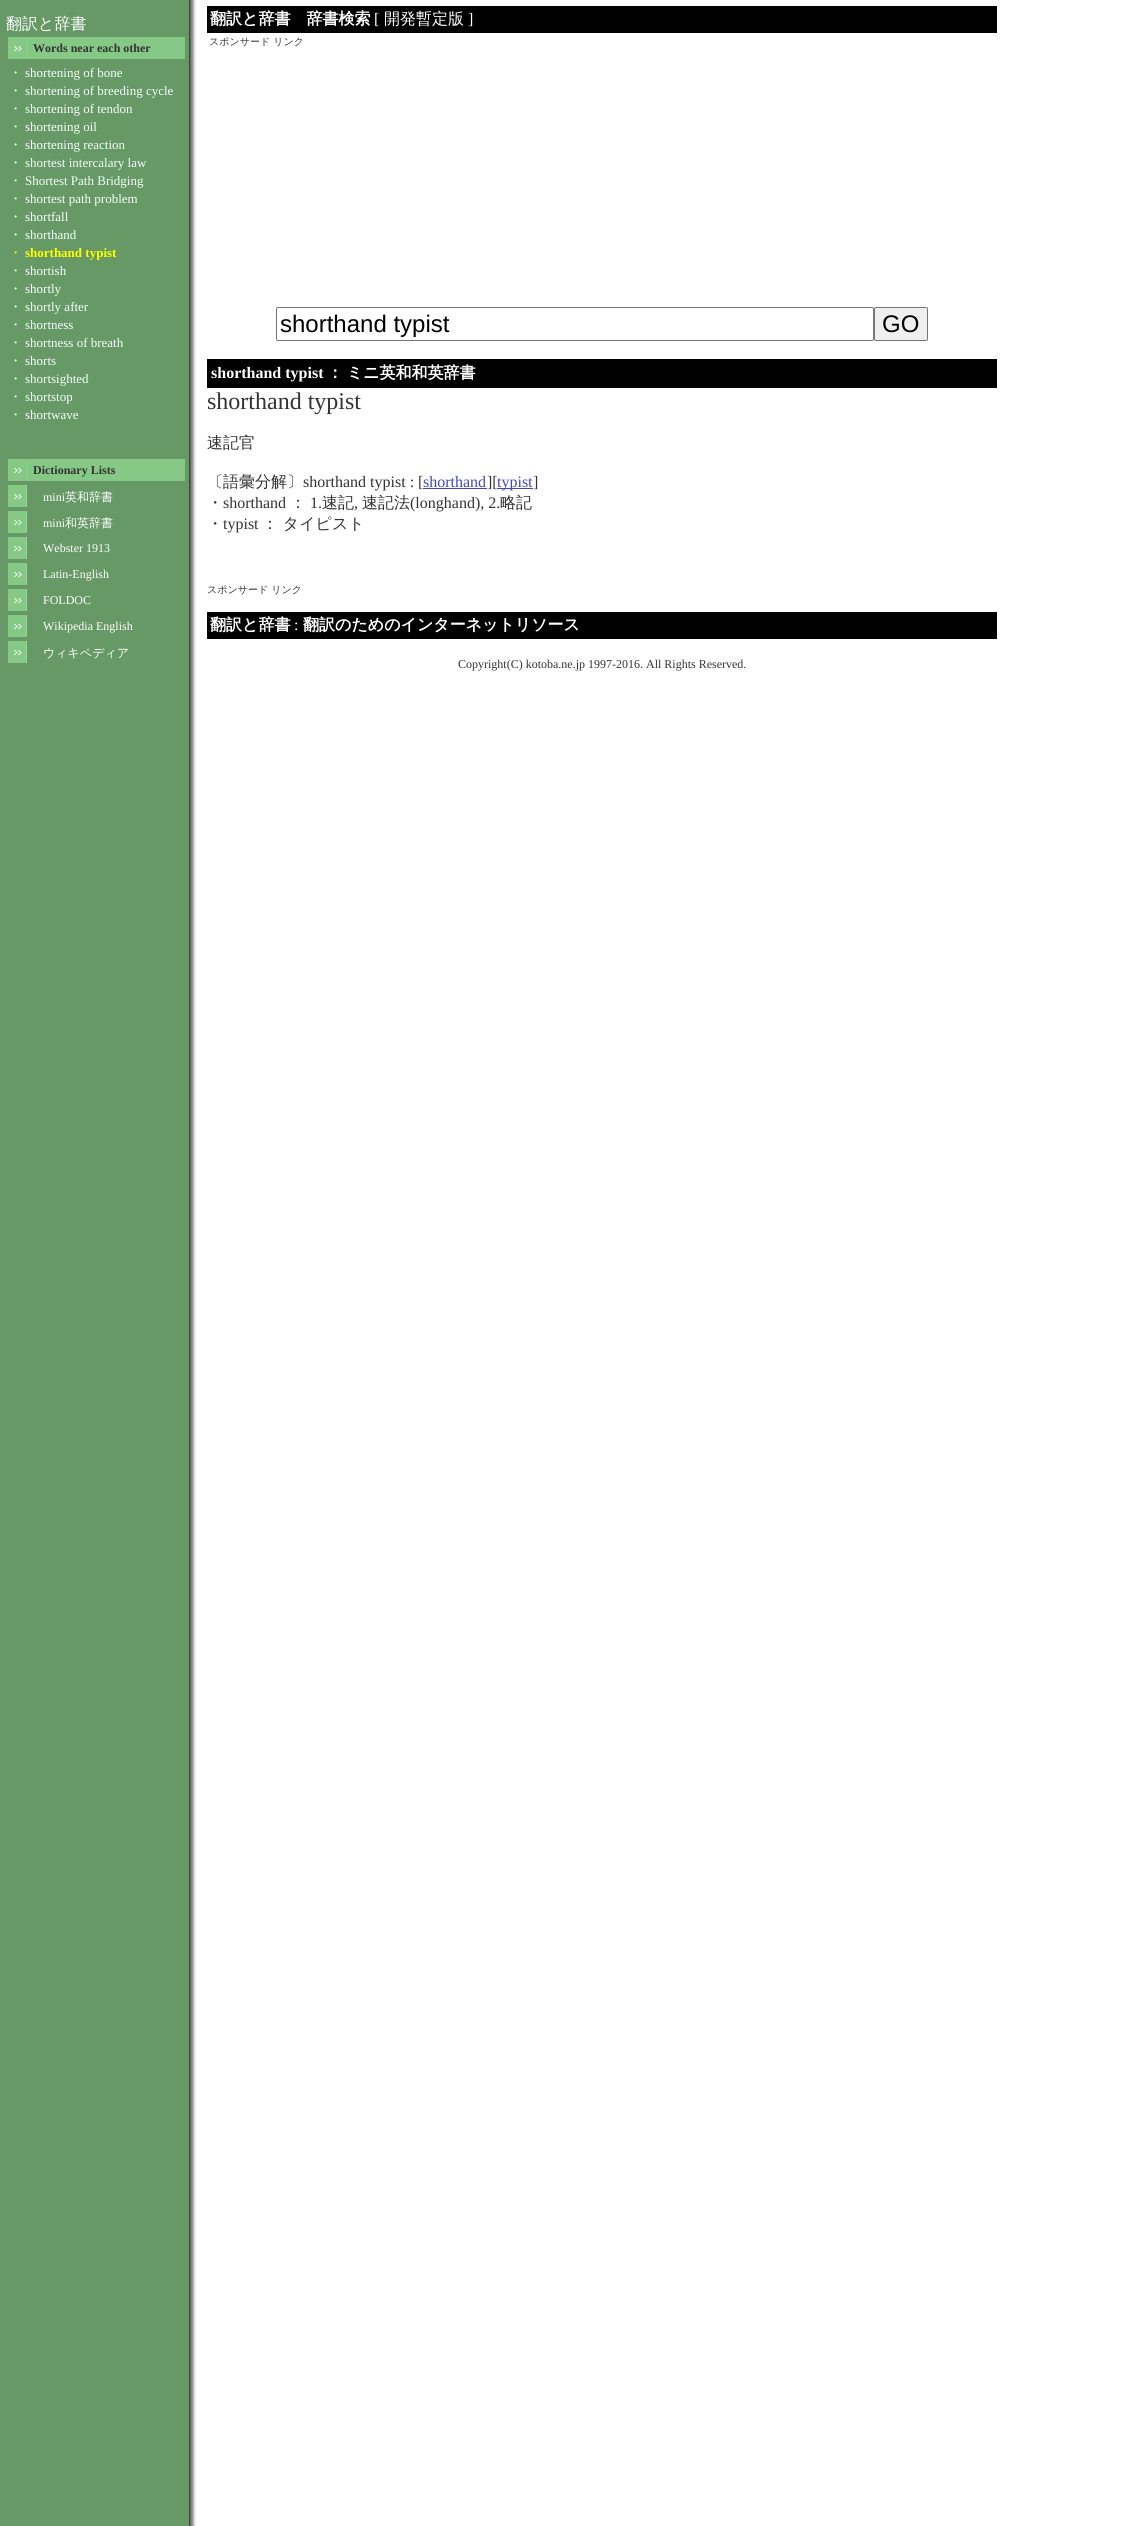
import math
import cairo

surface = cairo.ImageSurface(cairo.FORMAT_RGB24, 1144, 2526)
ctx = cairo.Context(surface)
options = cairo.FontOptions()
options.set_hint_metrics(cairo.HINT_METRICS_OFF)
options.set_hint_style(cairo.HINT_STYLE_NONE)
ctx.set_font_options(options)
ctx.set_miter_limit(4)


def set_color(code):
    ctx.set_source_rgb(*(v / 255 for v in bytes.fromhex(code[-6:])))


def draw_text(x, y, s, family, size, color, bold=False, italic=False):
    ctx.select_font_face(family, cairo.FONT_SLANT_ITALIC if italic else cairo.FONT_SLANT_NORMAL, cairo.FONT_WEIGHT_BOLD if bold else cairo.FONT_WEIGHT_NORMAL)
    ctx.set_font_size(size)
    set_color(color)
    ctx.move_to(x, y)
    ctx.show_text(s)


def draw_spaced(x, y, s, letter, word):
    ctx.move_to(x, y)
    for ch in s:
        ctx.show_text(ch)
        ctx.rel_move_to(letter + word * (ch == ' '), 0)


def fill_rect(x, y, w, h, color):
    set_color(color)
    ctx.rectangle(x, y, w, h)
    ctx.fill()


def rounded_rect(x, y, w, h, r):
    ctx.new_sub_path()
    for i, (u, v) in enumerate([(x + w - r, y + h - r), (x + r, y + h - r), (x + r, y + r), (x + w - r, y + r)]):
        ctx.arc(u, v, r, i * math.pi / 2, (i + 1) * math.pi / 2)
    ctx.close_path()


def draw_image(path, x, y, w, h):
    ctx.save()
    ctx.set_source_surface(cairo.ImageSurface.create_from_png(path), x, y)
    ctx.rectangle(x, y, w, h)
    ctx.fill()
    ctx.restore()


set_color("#ffffff")
ctx.paint()
draw_image("assets/img1.png", 0, 0, 196, 2526)
draw_text(6, 29, "翻訳と辞書", "WenQuanYi Zen Hei Medium", 16, "#ffffff")
draw_image("assets/img2.png", 8, 37, 177, 22)
draw_text(33, 52, "Words near each other", "Liberation Serif", 12, "#333333", bold=True)
draw_text(9, 77, "・", "WenQuanYi Zen Hei Medium", 13, "#f5fffa")
draw_text(25, 77, "shortening of bone", "Liberation Serif", 13, "#f5fffa")
draw_text(9, 95, "・", "WenQuanYi Zen Hei Medium", 13, "#f5fffa")
draw_text(25, 95, "shortening of breeding cycle", "Liberation Serif", 13, "#f5fffa")
draw_text(9, 113, "・", "WenQuanYi Zen Hei Medium", 13, "#f5fffa")
draw_text(25, 113, "shortening of tendon", "Liberation Serif", 13, "#f5fffa")
draw_text(9, 131, "・", "WenQuanYi Zen Hei Medium", 13, "#f5fffa")
draw_text(25, 131, "shortening oil", "Liberation Serif", 13, "#f5fffa")
draw_text(9, 149, "・", "WenQuanYi Zen Hei Medium", 13, "#f5fffa")
draw_text(25, 149, "shortening reaction", "Liberation Serif", 13, "#f5fffa")
draw_text(9, 167, "・", "WenQuanYi Zen Hei Medium", 13, "#f5fffa")
draw_text(25, 167, "shortest intercalary law", "Liberation Serif", 13, "#f5fffa")
draw_text(9, 185, "・", "WenQuanYi Zen Hei Medium", 13, "#f5fffa")
draw_text(25, 185, "Shortest Path Bridging", "Liberation Serif", 13, "#f5fffa")
draw_text(9, 203, "・", "WenQuanYi Zen Hei Medium", 13, "#f5fffa")
draw_text(25, 203, "shortest path problem", "Liberation Serif", 13, "#f5fffa")
draw_text(9, 221, "・", "WenQuanYi Zen Hei Medium", 13, "#f5fffa")
draw_text(25, 221, "shortfall", "Liberation Serif", 13, "#f5fffa")
draw_text(9, 239, "・", "WenQuanYi Zen Hei Medium", 13, "#f5fffa")
draw_text(25, 239, "shorthand", "Liberation Serif", 13, "#f5fffa")
draw_text(9, 257, "・", "WenQuanYi Zen Hei Medium", 13, "#ffff00")
draw_text(25, 257, "shorthand typist", "Liberation Serif", 13, "#ffff00", bold=True)
draw_text(9, 275, "・", "WenQuanYi Zen Hei Medium", 13, "#f5fffa")
draw_text(25, 275, "shortish", "Liberation Serif", 13, "#f5fffa")
draw_text(9, 293, "・", "WenQuanYi Zen Hei Medium", 13, "#f5fffa")
draw_text(25, 293, "shortly", "Liberation Serif", 13, "#f5fffa")
draw_text(9, 311, "・", "WenQuanYi Zen Hei Medium", 13, "#f5fffa")
draw_text(25, 311, "shortly after", "Liberation Serif", 13, "#f5fffa")
draw_text(9, 329, "・", "WenQuanYi Zen Hei Medium", 13, "#f5fffa")
draw_text(25, 329, "shortness", "Liberation Serif", 13, "#f5fffa")
draw_text(9, 347, "・", "WenQuanYi Zen Hei Medium", 13, "#f5fffa")
draw_text(25, 347, "shortness of breath", "Liberation Serif", 13, "#f5fffa")
draw_text(9, 365, "・", "WenQuanYi Zen Hei Medium", 13, "#f5fffa")
draw_text(25, 365, "shorts", "Liberation Serif", 13, "#f5fffa")
draw_text(9, 383, "・", "WenQuanYi Zen Hei Medium", 13, "#f5fffa")
draw_text(25, 383, "shortsighted", "Liberation Serif", 13, "#f5fffa")
draw_text(9, 401, "・", "WenQuanYi Zen Hei Medium", 13, "#f5fffa")
draw_text(25, 401, "shortstop", "Liberation Serif", 13, "#f5fffa")
draw_text(9, 419, "・", "WenQuanYi Zen Hei Medium", 13, "#f5fffa")
draw_text(25, 419, "shortwave", "Liberation Serif", 13, "#f5fffa")
draw_image("assets/img2.png", 8, 459, 177, 22)
draw_text(33, 474, "Dictionary Lists", "Liberation Serif", 12, "#333333", bold=True)
draw_image("assets/img3.png", 8, 485, 19, 22)
draw_text(43, 501, "mini", "Liberation Serif", 12, "#ffffff")
draw_text(65, 501, "英和辞書", "WenQuanYi Zen Hei Medium", 12, "#ffffff")
draw_image("assets/img3.png", 8, 511, 19, 22)
draw_text(43, 527, "mini", "Liberation Serif", 12, "#ffffff")
draw_text(65, 527, "和英辞書", "WenQuanYi Zen Hei Medium", 12, "#ffffff")
draw_image("assets/img3.png", 8, 537, 19, 22)
draw_text(43, 552, "Webster 1913", "Liberation Serif", 12, "#ffffff")
draw_image("assets/img3.png", 8, 563, 19, 22)
draw_text(43, 578, "Latin-English", "Liberation Serif", 12, "#ffffff")
draw_image("assets/img3.png", 8, 589, 19, 22)
draw_text(43, 604, "FOLDOC", "Liberation Serif", 12, "#ffffff")
draw_image("assets/img3.png", 8, 615, 19, 22)
draw_text(43, 630, "Wikipedia English", "Liberation Serif", 12, "#ffffff")
draw_image("assets/img3.png", 8, 641, 19, 22)
draw_text(43, 657, "ウィキペディア", "WenQuanYi Zen Hei Medium", 12, "#ffffff")
fill_rect(207, 6, 790, 27, "#000000")
draw_text(210, 24, "翻訳と辞書　辞書検索", "WenQuanYi Zen Hei", 16, "#ffffff", bold=True)
draw_text(374, 24, "[", "Liberation Serif", 16, "#ffffff")
draw_text(384, 24, "開発暫定版", "WenQuanYi Zen Hei Medium", 16, "#ffffff")
draw_text(468, 24, "]", "Liberation Serif", 16, "#ffffff")
draw_text(209, 45, "スポンサード リンク", "WenQuanYi Zen Hei Medium", 10, "#333333")
rounded_rect(276.5, 307.5, 597, 33, 1.5)
set_color("#767676")
ctx.set_line_width(1)
ctx.stroke()
draw_text(280, 332, "shorthand typist", "Liberation Sans", 24, "#000000")
set_color("#efefef")
rounded_rect(874.5, 307.5, 53, 33, 1.5)
ctx.fill_preserve()
set_color("#767676")
ctx.stroke()
draw_text(882, 332, "GO", "Liberation Sans", 24, "#000000")
fill_rect(207, 359, 790, 29, "#000000")
draw_text(211, 378, "shorthand typist", "Liberation Serif", 16, "#ffffff", bold=True)
ctx.select_font_face("WenQuanYi Zen Hei", cairo.FONT_SLANT_NORMAL, cairo.FONT_WEIGHT_BOLD)
draw_spaced(327, 378, "： ミニ英和和英辞書", 0, -1)
draw_text(207, 409, "shorthand typist", "Liberation Serif", 24, "#333333")
draw_text(207, 448, "速記官", "WenQuanYi Zen Hei Medium", 16, "#333333")
draw_text(207, 487, "〔語彙分解〕", "WenQuanYi Zen Hei Medium", 16, "#333333")
draw_text(303, 487, "shorthand typist : [", "Liberation Serif", 16, "#333333")
draw_text(423, 487, "shorthand", "Liberation Serif", 16, "#4648b7")
fill_rect(423, 488, 64, 1, "#4648b7")
draw_text(487, 487, "][", "Liberation Serif", 16, "#333333")
fill_rect(497, 488, 36, 1, "#4648b7")
draw_text(497, 487, "typist", "Liberation Serif", 16, "#4648b7")
draw_text(533, 487, "]", "Liberation Serif", 16, "#333333")
draw_text(207, 508, "・", "WenQuanYi Zen Hei Medium", 16, "#333333")
draw_text(223, 508, "shorthand", "Liberation Serif", 16, "#333333")
draw_text(290, 508, "：", "WenQuanYi Zen Hei Medium", 16, "#333333")
draw_text(310, 508, "1.", "Liberation Serif", 16, "#333333")
draw_text(322, 508, "速記", "WenQuanYi Zen Hei Medium", 16, "#333333")
draw_text(362, 508, "速記法", "WenQuanYi Zen Hei Medium", 16, "#333333")
draw_text(410, 508, "(longhand), 2.", "Liberation Serif", 16, "#333333")
draw_text(500, 508, "略記", "WenQuanYi Zen Hei Medium", 16, "#333333")
draw_text(354, 508, ",", "Liberation Serif", 16, "#333333")
draw_text(207, 529, "・", "WenQuanYi Zen Hei Medium", 16, "#333333")
draw_text(223, 529, "typist", "Liberation Serif", 16, "#333333")
draw_text(262, 529, "： タイピスト", "WenQuanYi Zen Hei Medium", 16, "#333333")
draw_text(207, 593, "スポンサード リンク", "WenQuanYi Zen Hei Medium", 10, "#333333")
fill_rect(207, 612, 790, 27, "#000000")
draw_text(210, 630, "翻訳と辞書", "WenQuanYi Zen Hei", 16, "#ffffff", bold=True)
draw_text(294, 630, ":", "Liberation Serif", 16, "#ffffff")
draw_text(303, 630, "翻訳のためのインターネットリソース", "WenQuanYi Zen Hei", 16, "#ffffff", bold=True)
draw_text(458, 668, "Copyright(C) kotoba.ne.jp 1997-2016. All Rights Reserved.", "Liberation Serif", 12, "#333333")
surface.write_to_png("output.png")
